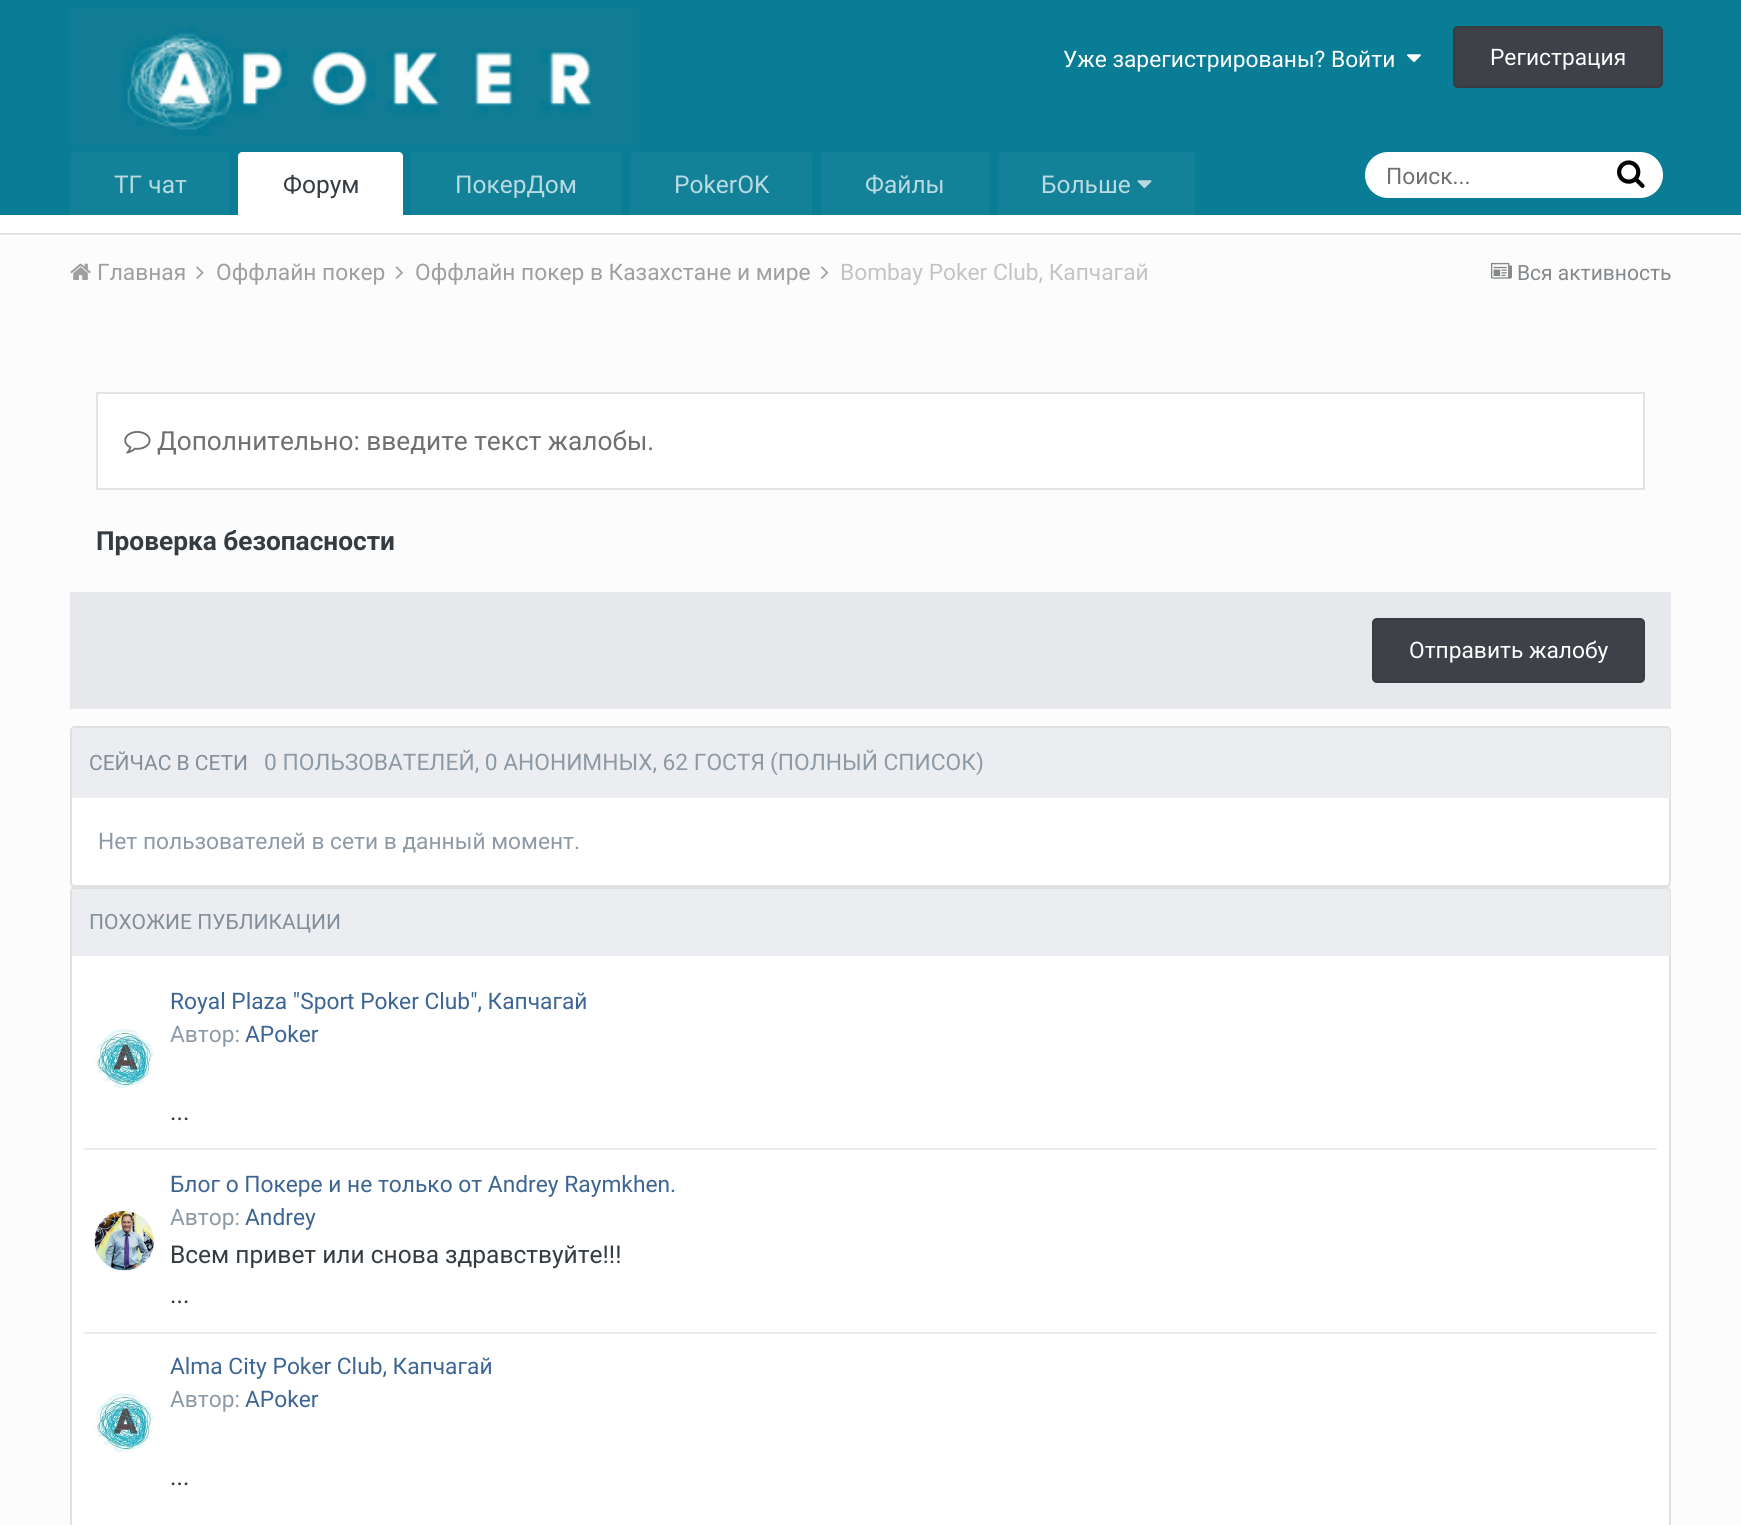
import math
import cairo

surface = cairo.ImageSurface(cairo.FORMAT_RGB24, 1741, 1525)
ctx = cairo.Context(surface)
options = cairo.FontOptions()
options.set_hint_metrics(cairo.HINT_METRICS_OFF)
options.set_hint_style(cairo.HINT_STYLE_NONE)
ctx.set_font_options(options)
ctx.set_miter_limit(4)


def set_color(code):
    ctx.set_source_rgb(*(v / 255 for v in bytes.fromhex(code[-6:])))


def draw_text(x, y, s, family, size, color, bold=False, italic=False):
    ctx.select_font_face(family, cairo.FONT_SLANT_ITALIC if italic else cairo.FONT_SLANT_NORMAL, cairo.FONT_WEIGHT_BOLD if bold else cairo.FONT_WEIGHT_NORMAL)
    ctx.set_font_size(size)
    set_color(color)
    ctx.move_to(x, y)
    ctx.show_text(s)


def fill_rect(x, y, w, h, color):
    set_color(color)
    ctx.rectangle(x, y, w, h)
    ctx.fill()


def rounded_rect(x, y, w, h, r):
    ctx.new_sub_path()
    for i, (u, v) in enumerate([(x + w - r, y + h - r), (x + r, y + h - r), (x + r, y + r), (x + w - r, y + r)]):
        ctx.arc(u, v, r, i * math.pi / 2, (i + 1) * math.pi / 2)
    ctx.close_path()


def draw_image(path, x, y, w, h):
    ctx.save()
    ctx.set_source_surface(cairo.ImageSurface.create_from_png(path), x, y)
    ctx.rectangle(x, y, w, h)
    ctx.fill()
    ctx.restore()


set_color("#fcfcfc")
ctx.paint()
fill_rect(0, 233, 1741, 2, "#e3e3e3")
fill_rect(0, 0, 1741, 215, "#097d95")
draw_image("assets/img1.png", 70, 9, 569, 136)
draw_text(1063, 67, "Уже зарегистрированы? Войти", "Roboto", 22.75, "#ffffff")
draw_image("assets/img2.png", 1407, 54, 14, 8)
set_color("#3e4148")
rounded_rect(1453, 26, 210, 62, 5)
ctx.fill()
rounded_rect(1454, 27, 208, 60, 4)
ctx.set_source_rgba(0, 0, 0, 0.1)
ctx.stroke()
draw_text(1490, 65, "Регистрация", "Roboto", 22.75, "#ffffff")
set_color("#138299")
ctx.new_path()
ctx.move_to(74, 152)
ctx.line_to(225, 152)
ctx.curve_to(227, 152, 229, 154, 229, 156)
ctx.line_to(229, 215)
ctx.line_to(70, 215)
ctx.line_to(70, 156)
ctx.curve_to(70, 154, 72, 152, 74, 152)
ctx.close_path()
ctx.fill()
draw_text(114, 193, "ТГ чат", "Roboto", 24.5, "#b8dae0")
set_color("#ffffff")
ctx.new_path()
ctx.move_to(242, 152)
ctx.line_to(399, 152)
ctx.curve_to(401, 152, 403, 154, 403, 156)
ctx.line_to(403, 215)
ctx.line_to(238, 215)
ctx.line_to(238, 156)
ctx.curve_to(238, 154, 240, 152, 242, 152)
ctx.close_path()
ctx.fill()
draw_text(283, 193, "Форум", "Roboto", 24.5, "#353c41")
set_color("#138299")
ctx.new_path()
ctx.move_to(415, 152)
ctx.line_to(617, 152)
ctx.curve_to(619, 152, 621, 154, 621, 156)
ctx.line_to(621, 215)
ctx.line_to(411, 215)
ctx.line_to(411, 156)
ctx.curve_to(411, 154, 413, 152, 415, 152)
ctx.close_path()
ctx.fill()
draw_text(455, 193, "ПокерДом", "Roboto", 24.5, "#b8dae0")
set_color("#138299")
ctx.new_path()
ctx.move_to(634, 152)
ctx.line_to(808, 152)
ctx.curve_to(810, 152, 812, 154, 812, 156)
ctx.line_to(812, 215)
ctx.line_to(630, 215)
ctx.line_to(630, 156)
ctx.curve_to(630, 154, 632, 152, 634, 152)
ctx.close_path()
ctx.fill()
draw_text(674, 193, "PokerOK", "Roboto", 24.5, "#b8dae0")
set_color("#138299")
ctx.new_path()
ctx.move_to(825, 152)
ctx.line_to(985, 152)
ctx.curve_to(987, 152, 989, 154, 989, 156)
ctx.line_to(989, 215)
ctx.line_to(821, 215)
ctx.line_to(821, 156)
ctx.curve_to(821, 154, 823, 152, 825, 152)
ctx.close_path()
ctx.fill()
draw_text(865, 193, "Файлы", "Roboto", 24.5, "#b8dae0")
set_color("#138299")
ctx.new_path()
ctx.move_to(1002, 152)
ctx.line_to(1191, 152)
ctx.curve_to(1193, 152, 1195, 154, 1195, 156)
ctx.line_to(1195, 215)
ctx.line_to(998, 215)
ctx.line_to(998, 156)
ctx.curve_to(998, 154, 1000, 152, 1002, 152)
ctx.close_path()
ctx.fill()
draw_text(1041, 193, "Больше", "Roboto", 24.5, "#b8dae0")
draw_image("assets/img3.png", 1137, 180, 15, 9)
set_color("#ffffff")
rounded_rect(1365, 152, 298, 46, 23)
ctx.fill()
draw_text(1386, 184, "Поиск...", "Roboto", 22.75, "#707070")
draw_image("assets/img4.png", 1617, 160, 28, 28)
fill_rect(0, 215, 1741, 18, "#ffffff")
draw_image("assets/img5.png", 70, 263, 21, 17)
draw_text(97, 280, "Главная", "Roboto", 22.75, "#9f9f9f")
draw_image("assets/img6.png", 196, 266, 8, 13)
draw_text(216, 280, "Оффлайн покер", "Roboto", 22.75, "#9f9f9f")
draw_image("assets/img7.png", 395, 266, 8, 13)
draw_text(415, 280, "Оффлайн покер в Казахстане и мире", "Roboto", 22.75, "#9f9f9f")
draw_image("assets/img8.png", 821, 266, 8, 13)
draw_text(840, 280, "Bombay Poker Club, Капчагай", "Roboto", 22.75, "#c4c4c4")
draw_image("assets/img9.png", 1491, 262, 21, 17)
draw_text(1517, 280, "Вся активность", "Roboto", 21, "#85898c")
fill_rect(96, 392, 1549, 98, "#e3e3e3")
fill_rect(98, 394, 1545, 94, "#ffffff")
draw_image("assets/img10.png", 124, 431, 27, 23)
draw_text(157, 450, "Дополнительно: введите текст жалобы.", "Roboto", 26.25, "#707070")
draw_text(96, 550, "Проверка безопасности", "Roboto", 26.25, "#353c41", bold=True)
fill_rect(70, 592, 1601, 117, "#e6e8eb")
set_color("#3e4148")
rounded_rect(1372, 618, 273, 65, 5)
ctx.fill()
rounded_rect(1373, 619, 271, 63, 4)
ctx.set_source_rgba(0, 0, 0, 0.1)
ctx.stroke()
draw_text(1409, 658, "Отправить жалобу", "Roboto", 22.75, "#ffffff")
set_color("#e3e3e3")
ctx.new_path()
ctx.move_to(70, 882)
ctx.curve_to(70, 885, 71, 889, 75, 889)
ctx.line_to(1666, 889)
ctx.curve_to(1668, 889, 1670, 887, 1671, 885)
ctx.line_to(1671, 884)
ctx.curve_to(1670, 886, 1668, 887, 1666, 887)
ctx.line_to(75, 887)
ctx.curve_to(72, 887, 70, 885, 70, 882)
ctx.close_path()
ctx.fill()
set_color("#ffffff")
rounded_rect(71, 727, 1599, 159, 4)
ctx.fill_preserve()
set_color("#e0e0e0")
ctx.stroke()
set_color("#ebedf0")
ctx.new_path()
ctx.move_to(76, 728)
ctx.line_to(1666, 728)
ctx.curve_to(1668, 728, 1670, 730, 1670, 732)
ctx.line_to(1670, 798)
ctx.line_to(72, 798)
ctx.line_to(72, 732)
ctx.curve_to(72, 730, 74, 728, 76, 728)
ctx.close_path()
ctx.fill()
draw_text(89, 770, "СЕЙЧАС В СЕТИ", "Roboto", 21, "#828e99")
draw_text(264, 770, "0 ПОЛЬЗОВАТЕЛЕЙ, 0 АНОНИМНЫХ, 62 ГОСТЯ", "Roboto", 22.75, "#8d9aa6")
draw_text(770, 770, "(ПОЛНЫЙ СПИСОК)", "Roboto", 22.75, "#8d9aa6")
draw_text(98, 849, "Нет пользователей в сети в данный момент.", "Roboto", 22.75, "#8d9aa6")
set_color("#ffffff")
rounded_rect(71, 888, 1599, 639, 4)
ctx.fill_preserve()
set_color("#e0e0e0")
ctx.stroke()
set_color("#ebedf0")
ctx.new_path()
ctx.move_to(76, 889)
ctx.line_to(1666, 889)
ctx.curve_to(1668, 889, 1670, 891, 1670, 893)
ctx.line_to(1670, 956)
ctx.line_to(72, 956)
ctx.line_to(72, 893)
ctx.curve_to(72, 891, 74, 889, 76, 889)
ctx.close_path()
ctx.fill()
draw_text(89, 929, "ПОХОЖИЕ ПУБЛИКАЦИИ", "Roboto", 21, "#828e99")
fill_rect(84, 1148, 1573, 2, "#ebebeb")
draw_image("assets/img11.png", 95, 1029, 59, 59)
draw_text(170, 1009, "Royal Plaza \"Sport Poker Club\", Капчагай", "Roboto", 22.75, "#3d6594")
draw_text(170, 1042, "Автор:", "Roboto", 22.75, "#8d9aa6")
draw_text(245, 1042, "APoker", "Roboto", 22.75, "#3d6594")
draw_text(170, 1120, "...", "Roboto", 24.5, "#353c41")
fill_rect(84, 1332, 1573, 2, "#ebebeb")
draw_image("assets/img12.png", 94, 1211, 60, 60)
draw_text(170, 1192, "Блог о Покере и не только от Andrey Raymkhen.", "Roboto", 22.75, "#3d6594")
draw_text(170, 1225, "Автор:", "Roboto", 22.75, "#8d9aa6")
draw_text(245, 1225, "Andrey", "Roboto", 22.75, "#3d6594")
draw_text(170, 1263, "Всем привет или снова здравствуйте!!!", "Roboto", 24.5, "#353c41")
draw_text(170, 1303, "...", "Roboto", 24.5, "#353c41")
draw_image("assets/img11.png", 95, 1393, 59, 59)
draw_text(170, 1374, "Alma City Poker Club, Капчагай", "Roboto", 22.75, "#3d6594")
draw_text(170, 1407, "Автор:", "Roboto", 22.75, "#8d9aa6")
draw_text(245, 1407, "APoker", "Roboto", 22.75, "#3d6594")
draw_text(170, 1485, "...", "Roboto", 24.5, "#353c41")
surface.write_to_png("output.png")
